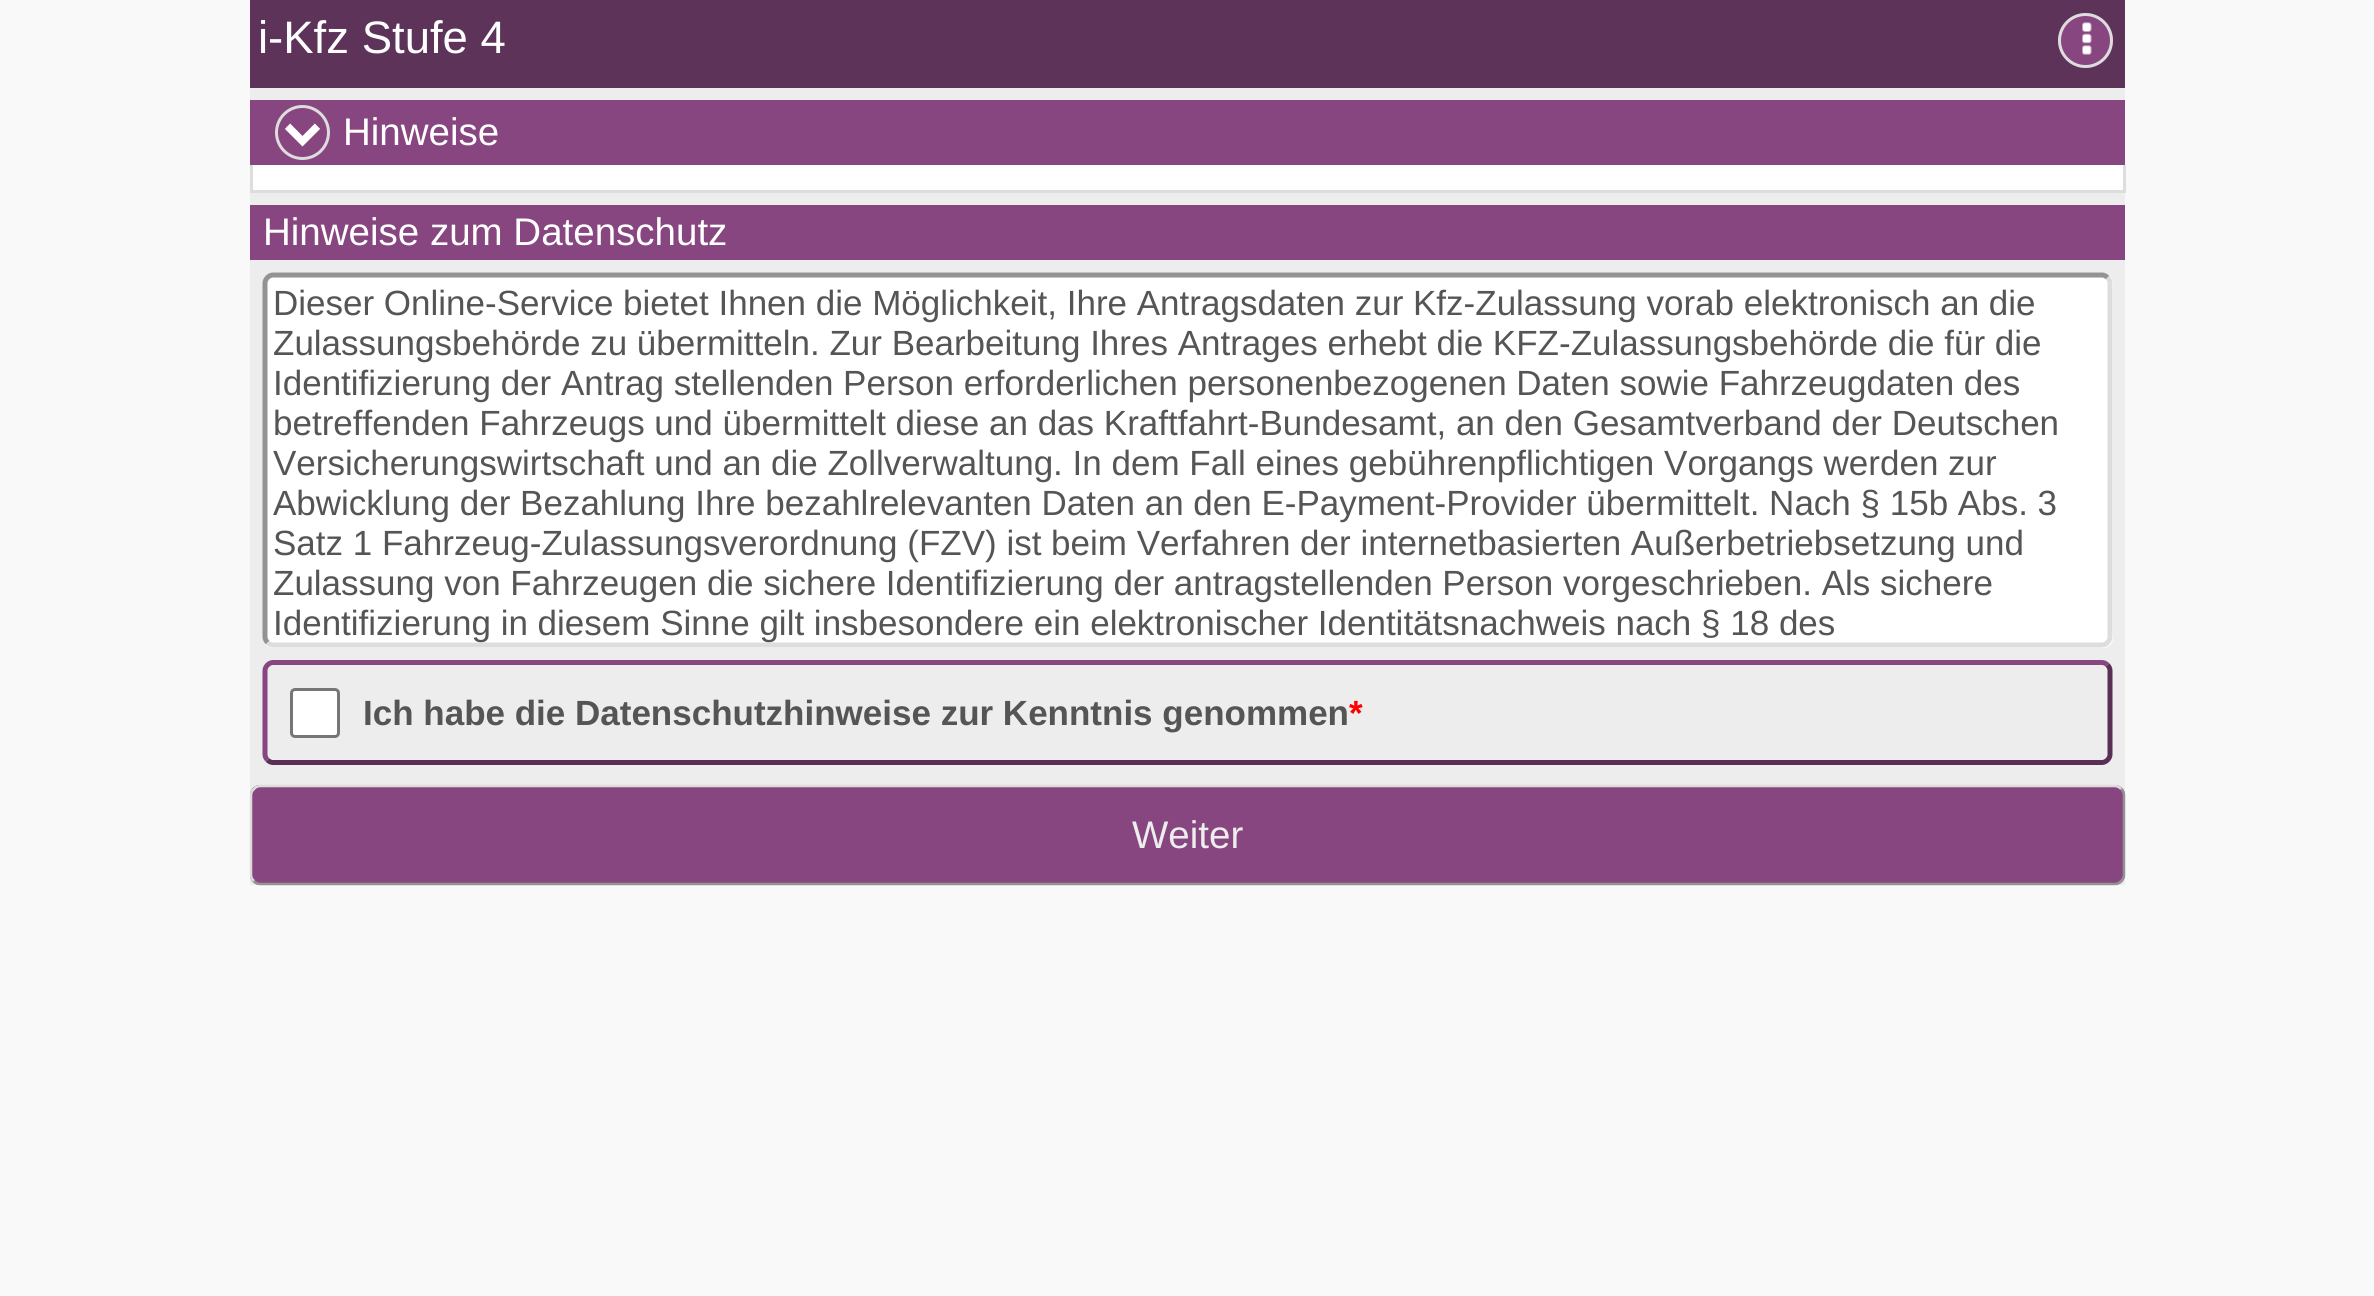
import math
import cairo

surface = cairo.ImageSurface(cairo.FORMAT_RGB24, 2374, 1296)
ctx = cairo.Context(surface)
options = cairo.FontOptions()
options.set_hint_metrics(cairo.HINT_METRICS_OFF)
options.set_hint_style(cairo.HINT_STYLE_NONE)
ctx.set_font_options(options)
ctx.set_miter_limit(4)


def set_color(code):
    ctx.set_source_rgb(*(v / 255 for v in bytes.fromhex(code[-6:])))


def draw_text(x, y, s, family, size, color, bold=False, italic=False):
    ctx.select_font_face(family, cairo.FONT_SLANT_ITALIC if italic else cairo.FONT_SLANT_NORMAL, cairo.FONT_WEIGHT_BOLD if bold else cairo.FONT_WEIGHT_NORMAL)
    ctx.set_font_size(size)
    set_color(color)
    ctx.move_to(x, y)
    ctx.show_text(s)


def fill_rect(x, y, w, h, color):
    set_color(color)
    ctx.rectangle(x, y, w, h)
    ctx.fill()


def rounded_rect(x, y, w, h, r):
    ctx.new_sub_path()
    for i, (u, v) in enumerate([(x + w - r, y + h - r), (x + r, y + h - r), (x + r, y + r), (x + w - r, y + r)]):
        ctx.arc(u, v, r, i * math.pi / 2, (i + 1) * math.pi / 2)
    ctx.close_path()


def draw_image(path, x, y, w, h):
    ctx.save()
    ctx.set_source_surface(cairo.ImageSurface.create_from_png(path), x, y)
    ctx.rectangle(x, y, w, h)
    ctx.fill()
    ctx.restore()


set_color("#f9f9f9")
ctx.paint()
fill_rect(250, 88, 1875, 797, "#ededed")
fill_rect(250, 0, 1875, 88, "#5d3359")
draw_text(258, 53, "i-Kfz Stufe 4", "Liberation Sans", 45.5, "#ffffff")
set_color("#874680")
ctx.new_path()
ctx.arc(2085.5, 40.5, 27.5, 0, 2 * math.pi)
ctx.fill()
draw_image("assets/img1.png", 2082, 22, 10, 33)
ctx.arc(2085.5, 40.5, 26, 0, 2 * math.pi)
set_color("#dddddd")
ctx.set_line_width(3)
ctx.stroke()
fill_rect(250, 100, 1875, 65, "#874680")
draw_image("assets/img2.png", 285, 123, 35, 24)
ctx.arc(302.5, 132.5, 26, 0, 2 * math.pi)
set_color("#dddddd")
ctx.stroke()
draw_text(343, 145, "Hinweise", "Liberation Sans", 38.5, "#ffffff")
fill_rect(253, 165, 1870, 25, "#ffffff")
fill_rect(2123, 165, 3, 28, "#dddddd")
fill_rect(250, 190, 1875, 3, "#dddddd")
fill_rect(250, 165, 3, 28, "#dddddd")
fill_rect(250, 205, 1875, 55, "#874680")
draw_text(263, 245, "Hinweise zum Datenschutz", "Liberation Sans", 38.5, "#ffffff")
rounded_rect(263, 273, 1850, 375, 10)
ctx.fill()
ctx.new_path()
ctx.move_to(2107.5, 277.5)
ctx.curve_to(2109, 279, 2110, 281, 2110, 283)
ctx.line_to(2110, 637)
ctx.curve_to(2110, 639, 2109, 641, 2107.5, 642.5)
ctx.curve_to(2106, 644, 2104, 645, 2102, 645)
ctx.line_to(273, 645)
ctx.curve_to(271, 645, 269, 644, 267.5, 642.5)
set_color("#dddddd")
ctx.set_line_width(5)
ctx.stroke()
ctx.new_path()
ctx.move_to(267.5, 642.5)
ctx.curve_to(266, 641, 265, 639, 265, 637)
ctx.line_to(265, 283)
ctx.curve_to(265, 281, 266, 279, 267.5, 277.5)
ctx.curve_to(269, 276, 271, 275, 273, 275)
ctx.line_to(2102, 275)
ctx.curve_to(2104, 275, 2106, 276, 2107.5, 277.5)
set_color("#939393")
ctx.stroke()
draw_text(273, 315, "Dieser Online-Service bietet Ihnen die Möglichkeit, Ihre Antragsdaten zur Kfz-Zulassung vorab elektronisch an die", "Liberation Sans", 35, "#555555")
draw_text(273, 355, "Zulassungsbehörde zu übermitteln. Zur Bearbeitung Ihres Antrages erhebt die KFZ-Zulassungsbehörde die für die", "Liberation Sans", 35, "#555555")
draw_text(273, 395, "Identifizierung der Antrag stellenden Person erforderlichen personenbezogenen Daten sowie Fahrzeugdaten des", "Liberation Sans", 35, "#555555")
draw_text(273, 435, "betreffenden Fahrzeugs und übermittelt diese an das Kraftfahrt-Bundesamt, an den Gesamtverband der Deutschen", "Liberation Sans", 35, "#555555")
draw_text(273, 475, "Versicherungswirtschaft und an die Zollverwaltung. In dem Fall eines gebührenpflichtigen Vorgangs werden zur", "Liberation Sans", 35, "#555555")
draw_text(273, 515, "Abwicklung der Bezahlung Ihre bezahlrelevanten Daten an den E-Payment-Provider übermittelt. Nach § 15b Abs. 3", "Liberation Sans", 35, "#555555")
draw_text(273, 555, "Satz 1 Fahrzeug-Zulassungsverordnung (FZV) ist beim Verfahren der internetbasierten Außerbetriebsetzung und", "Liberation Sans", 35, "#555555")
draw_text(273, 595, "Zulassung von Fahrzeugen die sichere Identifizierung der antragstellenden Person vorgeschrieben. Als sichere", "Liberation Sans", 35, "#555555")
draw_text(273, 635, "Identifizierung in diesem Sinne gilt insbesondere ein elektronischer Identitätsnachweis nach § 18 des", "Liberation Sans", 35, "#555555")
ctx.new_path()
ctx.move_to(2107.5, 665)
ctx.curve_to(2109, 666.5, 2110, 668.5, 2110, 670.5)
ctx.line_to(2110, 754.5)
ctx.curve_to(2110, 756.5, 2109, 758.5, 2107.5, 760)
ctx.curve_to(2106, 761.5, 2104, 762.5, 2102, 762.5)
ctx.line_to(273, 762.5)
ctx.curve_to(271, 762.5, 269, 761.5, 267.5, 760)
set_color("#5a2f55")
ctx.stroke()
ctx.new_path()
ctx.move_to(267.5, 760)
ctx.curve_to(266, 758.5, 265, 756.5, 265, 754.5)
ctx.line_to(265, 670.5)
ctx.curve_to(265, 668.5, 266, 666.5, 267.5, 665)
ctx.curve_to(269, 663.5, 271, 662.5, 273, 662.5)
ctx.line_to(2102, 662.5)
ctx.curve_to(2104, 662.5, 2106, 663.5, 2107.5, 665)
set_color("#874680")
ctx.stroke()
set_color("#ffffff")
rounded_rect(291.5, 689.5, 47, 47, 3.5)
ctx.fill_preserve()
set_color("#767676")
ctx.set_line_width(3)
ctx.stroke()
draw_text(363, 725, "Ich habe die Datenschutzhinweise zur Kenntnis genommen", "Liberation Sans", 35, "#555555", bold=True)
draw_text(1349, 725, "*", "Liberation Sans", 35, "#ff0000", bold=True)
set_color("#874680")
rounded_rect(250, 785, 1875, 100, 10)
ctx.fill()
ctx.new_path()
ctx.move_to(2121, 789)
ctx.curve_to(2123, 790.5, 2124, 793, 2124, 795.5)
ctx.line_to(2124, 874.5)
ctx.curve_to(2124, 877, 2123, 879.5, 2121, 881)
ctx.curve_to(2119.5, 883, 2117, 884, 2114.5, 884)
ctx.line_to(260.5, 884)
ctx.curve_to(258, 884, 255.5, 883, 254, 881)
set_color("#939393")
ctx.set_line_width(2.5)
ctx.stroke()
ctx.new_path()
ctx.move_to(254, 881)
ctx.curve_to(252, 879.5, 251, 877, 251, 874.5)
ctx.line_to(251, 795.5)
ctx.curve_to(251, 793, 252, 790.5, 254, 789)
ctx.curve_to(255.5, 787, 258, 786, 260.5, 786)
ctx.line_to(2114.5, 786)
ctx.curve_to(2117, 786, 2119.5, 787, 2121, 789)
set_color("#dddddd")
ctx.stroke()
draw_text(1132, 848, "Weiter", "Liberation Sans", 38.5, "#ededed")
surface.write_to_png("output.png")
